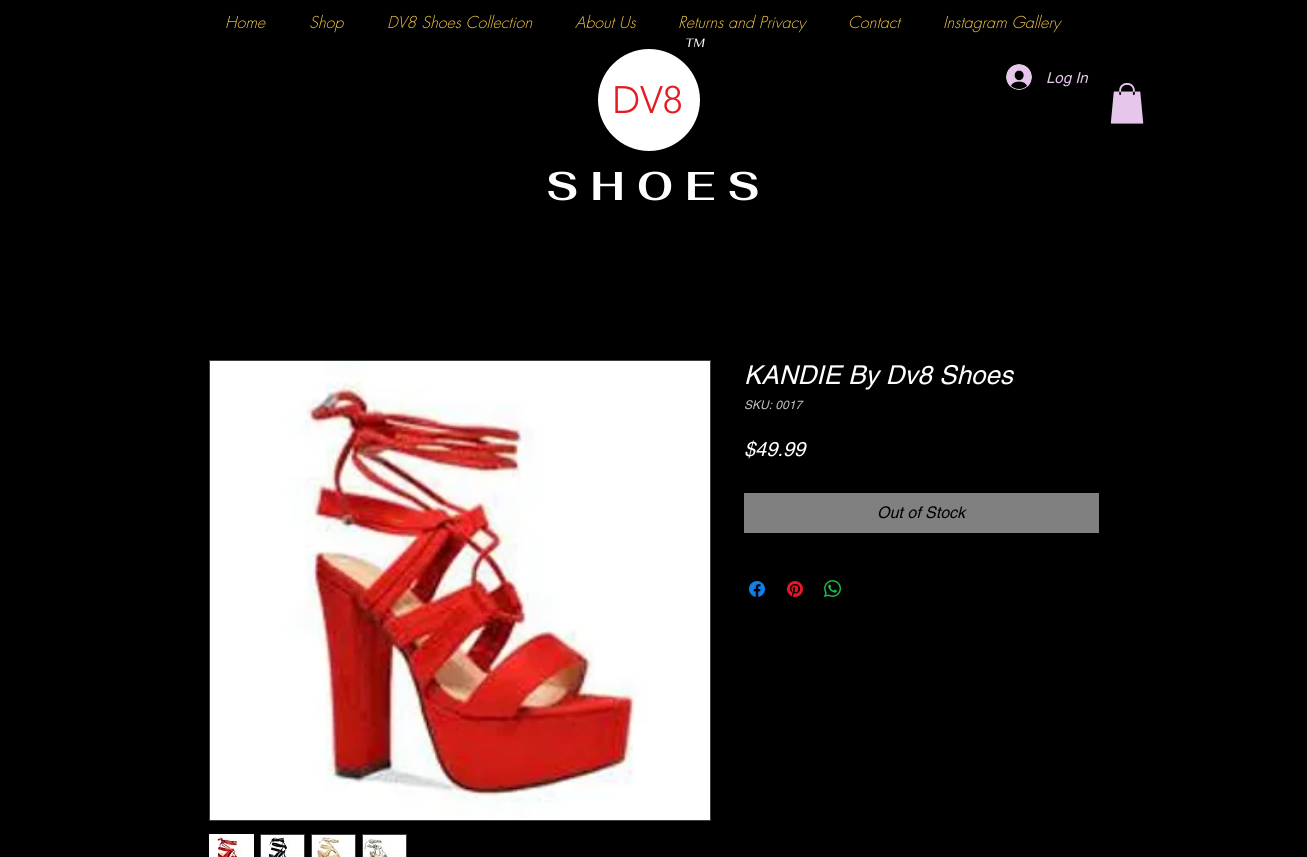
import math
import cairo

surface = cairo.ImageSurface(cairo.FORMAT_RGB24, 1307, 857)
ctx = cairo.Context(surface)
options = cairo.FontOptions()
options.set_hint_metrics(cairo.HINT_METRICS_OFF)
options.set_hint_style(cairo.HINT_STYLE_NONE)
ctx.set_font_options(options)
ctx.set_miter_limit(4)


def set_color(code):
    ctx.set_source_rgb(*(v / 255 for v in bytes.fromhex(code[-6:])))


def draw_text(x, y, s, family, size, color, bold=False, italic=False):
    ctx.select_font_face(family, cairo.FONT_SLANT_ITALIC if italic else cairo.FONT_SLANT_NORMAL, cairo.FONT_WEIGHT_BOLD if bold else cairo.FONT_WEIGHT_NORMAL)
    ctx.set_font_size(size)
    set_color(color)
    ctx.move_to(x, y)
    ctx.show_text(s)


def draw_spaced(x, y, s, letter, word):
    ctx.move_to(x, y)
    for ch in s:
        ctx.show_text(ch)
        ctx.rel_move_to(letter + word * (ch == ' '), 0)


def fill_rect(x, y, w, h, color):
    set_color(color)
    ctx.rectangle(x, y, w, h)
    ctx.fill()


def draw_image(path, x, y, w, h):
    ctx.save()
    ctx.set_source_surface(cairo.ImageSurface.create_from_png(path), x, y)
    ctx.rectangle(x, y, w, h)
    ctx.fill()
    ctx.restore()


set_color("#000000")
ctx.paint()
draw_text(225, 28, "Home", "futura Light", 16, "#f5c645", italic=True)
draw_text(309, 28, "Shop", "futura Light", 16, "#f5c645", italic=True)
draw_text(387, 28, "DV8 Shoes Collection", "futura Light", 16, "#f5c645", italic=True)
draw_text(575, 28, "About Us", "futura Light", 16, "#f5c645", italic=True)
draw_text(678, 28, "Returns and Privacy", "futura Light", 16, "#f5c645", italic=True)
draw_text(848, 28, "Contact", "futura Light", 16, "#f5c645", italic=True)
draw_text(943, 28, "Instagram Gallery", "futura Light", 16, "#f5c645", italic=True)
draw_text(685, 47, "TM", "Fahkwang", 12, "#ffffff", italic=True)
ctx.new_path()
ctx.move_to(700, 100)
ctx.curve_to(700, 128, 677, 151, 649, 151)
ctx.curve_to(621, 151, 598, 128, 598, 100)
ctx.curve_to(598, 72, 621, 49, 649, 49)
ctx.curve_to(677, 49, 700, 72, 700, 100)
ctx.close_path()
ctx.fill()
draw_image("assets/img1.png", 1006, 64, 26, 26)
draw_text(1046, 83, "Log In", "helvetica", 15, "#e6c7eb", italic=True)
draw_text(612, 113, "DV8", "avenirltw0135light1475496 Light", 38, "#e21c21")
draw_image("assets/img2.png", 1110, 83, 34, 41)
ctx.select_font_face("Fahkwang", cairo.FONT_SLANT_NORMAL, cairo.FONT_WEIGHT_BOLD)
ctx.set_font_size(40)
set_color("#ffffff")
draw_spaced(546, 200, "SHOES", 12, 0)
ctx.rectangle(209.5, 360.5, 501, 460)
set_color("#404040")
ctx.set_line_width(1)
ctx.stroke()
draw_image("assets/img3.png", 210, 361, 500, 459)
ctx.rectangle(209.5, 834.5, 44, 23)
set_color("#ffffff")
ctx.stroke()
draw_image("assets/img4.png", 210, 835, 43, 22)
fill_rect(260, 834, 45, 23, "#404040")
draw_image("assets/img5.png", 261, 835, 43, 22)
fill_rect(311, 834, 45, 23, "#404040")
draw_image("assets/img6.png", 312, 835, 43, 22)
fill_rect(362, 834, 45, 23, "#404040")
draw_image("assets/img7.png", 363, 835, 43, 22)
draw_text(744, 384, "KANDIE By Dv8 Shoes", "helvetica", 26, "#ffffff", italic=True)
draw_text(744, 409, "SKU: 0017", "helvetica", 12, "#bfbfbf", italic=True)
draw_text(744, 456, "$49.99", "helvetica", 20, "#ffffff", italic=True)
fill_rect(744, 493, 355, 40, "#808080")
draw_text(877, 518, "Out of Stock", "helvetica", 16, "#000000", italic=True)
draw_image("assets/img8.png", 749, 581, 16, 16)
draw_image("assets/img9.png", 787, 581, 16, 16)
draw_image("assets/img10.png", 824, 580, 17, 17)
surface.write_to_png("output.png")
